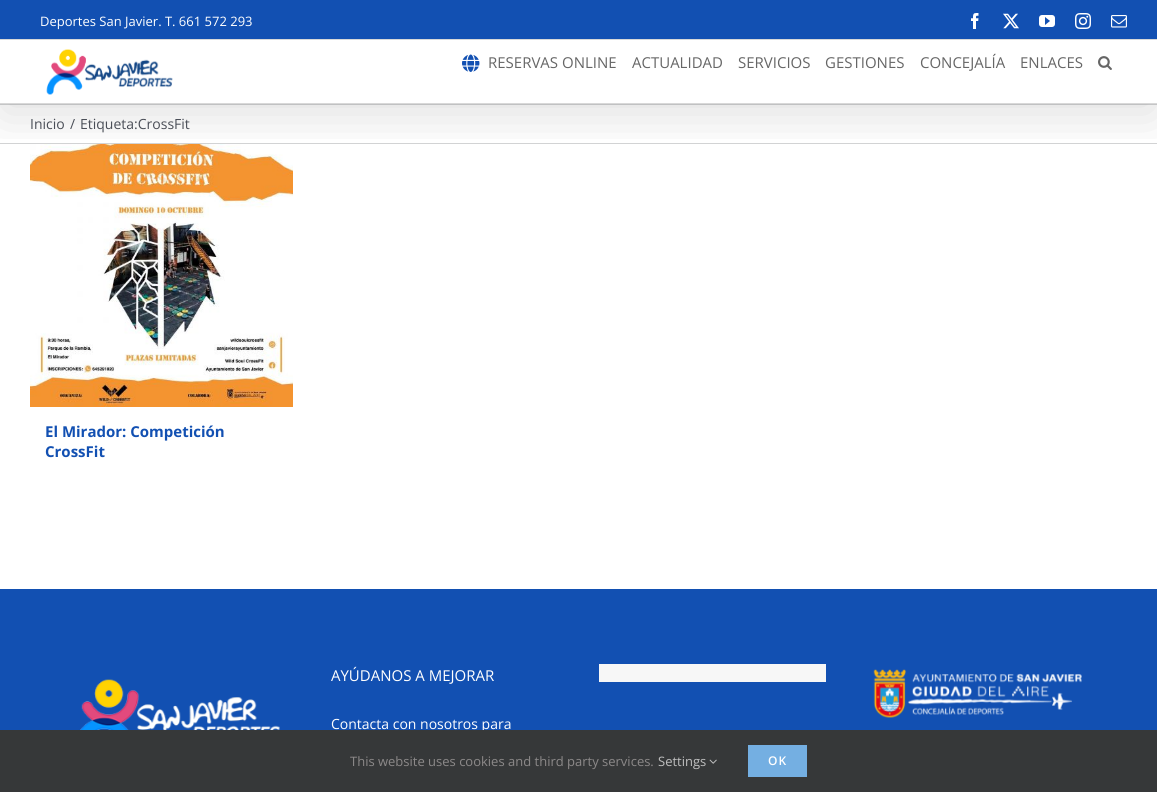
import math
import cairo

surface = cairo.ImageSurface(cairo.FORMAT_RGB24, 1157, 792)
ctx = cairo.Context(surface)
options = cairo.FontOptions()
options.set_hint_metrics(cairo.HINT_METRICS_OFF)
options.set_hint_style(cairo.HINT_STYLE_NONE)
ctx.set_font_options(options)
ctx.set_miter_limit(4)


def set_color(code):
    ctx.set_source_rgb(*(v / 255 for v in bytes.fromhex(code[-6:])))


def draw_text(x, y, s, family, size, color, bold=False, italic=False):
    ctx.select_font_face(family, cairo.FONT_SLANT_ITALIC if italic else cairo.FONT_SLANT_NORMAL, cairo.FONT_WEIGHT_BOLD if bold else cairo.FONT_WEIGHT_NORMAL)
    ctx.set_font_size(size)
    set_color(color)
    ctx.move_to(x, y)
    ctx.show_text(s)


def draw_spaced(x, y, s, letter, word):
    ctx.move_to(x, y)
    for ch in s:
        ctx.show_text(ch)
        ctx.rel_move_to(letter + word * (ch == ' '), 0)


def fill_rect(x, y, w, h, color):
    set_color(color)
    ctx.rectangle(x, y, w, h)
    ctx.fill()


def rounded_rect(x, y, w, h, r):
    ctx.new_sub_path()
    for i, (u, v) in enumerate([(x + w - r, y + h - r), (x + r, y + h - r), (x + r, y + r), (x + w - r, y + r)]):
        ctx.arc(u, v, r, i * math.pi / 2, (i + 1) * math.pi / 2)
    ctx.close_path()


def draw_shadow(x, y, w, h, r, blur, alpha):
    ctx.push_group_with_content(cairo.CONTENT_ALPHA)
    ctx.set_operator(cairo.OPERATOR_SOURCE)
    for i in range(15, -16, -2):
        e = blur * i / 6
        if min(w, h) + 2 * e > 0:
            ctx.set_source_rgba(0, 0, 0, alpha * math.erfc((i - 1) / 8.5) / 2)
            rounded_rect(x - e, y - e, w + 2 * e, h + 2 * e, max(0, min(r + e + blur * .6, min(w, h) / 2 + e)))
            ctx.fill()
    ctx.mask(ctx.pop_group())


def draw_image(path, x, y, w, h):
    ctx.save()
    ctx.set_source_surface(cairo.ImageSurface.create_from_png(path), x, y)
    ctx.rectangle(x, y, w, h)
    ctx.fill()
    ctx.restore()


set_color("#ffffff")
ctx.paint()
fill_rect(0, 104, 1157, 1, "#d2d3d4")
fill_rect(0, 143, 1157, 1, "#d2d3d4")
draw_image("assets/img9.png", 30, 144, 263, 263)
ctx.save()
ctx.rectangle(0, 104, 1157, 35)
ctx.clip()
set_color("#000000")
draw_shadow(2, 12, 1153, 100, 0, 25, 0.14)
ctx.restore()
fill_rect(0, 0, 1157, 39, "#1250b2")
fill_rect(0, 39, 1157, 1, "#d8d8d8")
draw_text(40, 26, "Deportes San Javier. T. 661 572 293", "Open Sans", 13, "#ffffff")
draw_image("assets/img1.png", 971, 13, 8, 16)
draw_image("assets/img2.png", 1003, 13, 16, 16)
draw_image("assets/img3.png", 1039, 15, 16, 12)
draw_image("assets/img4.png", 1075, 13, 16, 16)
draw_image("assets/img5.png", 1111, 15, 16, 13)
fill_rect(0, 103, 1157, 1, "#d8d8d8")
draw_image("assets/img6.png", 46, 49, 127, 46)
draw_image("assets/img7.png", 462, 54, 18, 18)
draw_text(488, 68, "RESERVAS ONLINE", "Open Sans", 15, "#666666")
draw_text(632, 68, "ACTUALIDAD", "Open Sans", 15, "#666666")
draw_text(738, 68, "SERVICIOS", "Open Sans", 15, "#666666")
draw_text(825, 68, "GESTIONES", "Open Sans", 15, "#666666")
draw_text(920, 68, "CONCEJALÍA", "Open Sans", 15, "#666666")
draw_text(1020, 68, "ENLACES", "Open Sans", 15, "#666666")
draw_image("assets/img8.png", 1098, 56, 14, 14)
draw_text(30, 129, "Inicio", "Open Sans", 14, "#4a4e57")
draw_text(70, 129, "/", "Open Sans", 14, "#4a4e57")
draw_text(80, 129, "Etiqueta:CrossFit", "Open Sans", 14, "#4a4e57")
draw_text(45, 437, "El Mirador: Competición", "Open Sans", 15, "#1250b2", bold=True)
draw_text(45, 457, "CrossFit", "Open Sans", 15, "#1250b2", bold=True)
fill_rect(0, 589, 1157, 141, "#1250b2")
draw_image("assets/img10.png", 80, 679, 200, 51)
draw_text(331, 681, "AYÚDANOS A MEJORAR", "Open Sans", 15, "#ffffff")
draw_text(331, 729, "Contacta con nosotros para", "Open Sans", 14, "#ffffff")
fill_rect(599, 664, 227, 18, "#f7f7f7")
draw_image("assets/img11.png", 873, 669, 209, 49)
fill_rect(0, 730, 1157, 62, "#363839")
draw_text(350, 766, "This website uses cookies and third party services.", "Open Sans", 13, "#8c8989")
draw_text(658, 766, "Settings", "Open Sans", 13, "#bfbfbf")
draw_image("assets/img12.png", 709, 759, 8, 5)
fill_rect(748, 745, 59, 32, "#74afe2")
ctx.select_font_face("Open Sans SemiBold")
ctx.set_font_size(12)
set_color("#ffffff")
draw_spaced(768, 765, "OK", 1, 0)
surface.write_to_png("output.png")
